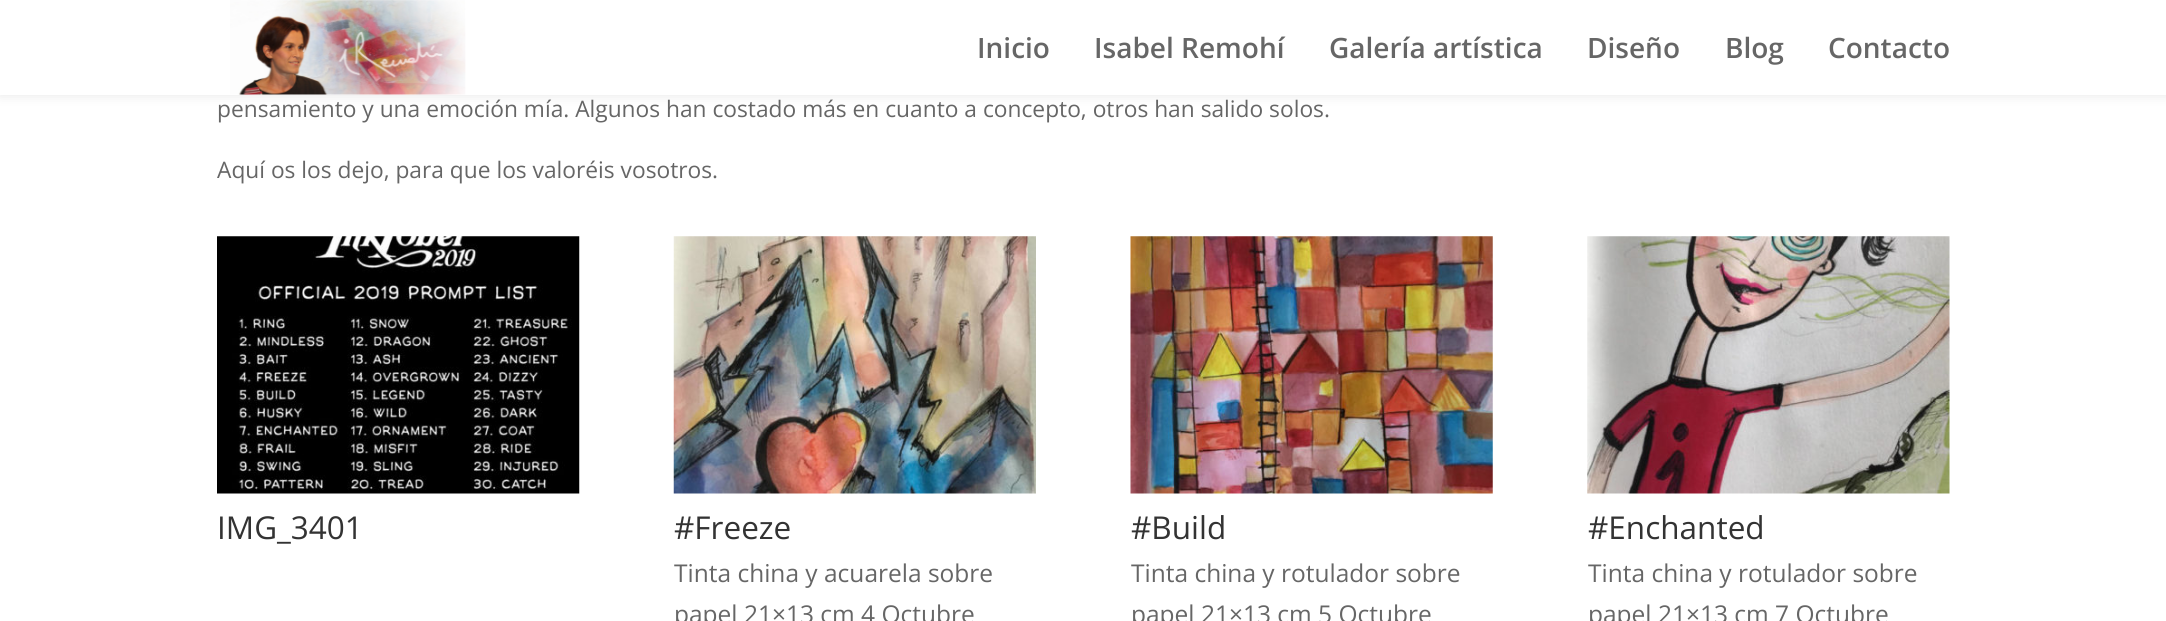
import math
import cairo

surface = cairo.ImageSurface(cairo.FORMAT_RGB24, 2166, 621)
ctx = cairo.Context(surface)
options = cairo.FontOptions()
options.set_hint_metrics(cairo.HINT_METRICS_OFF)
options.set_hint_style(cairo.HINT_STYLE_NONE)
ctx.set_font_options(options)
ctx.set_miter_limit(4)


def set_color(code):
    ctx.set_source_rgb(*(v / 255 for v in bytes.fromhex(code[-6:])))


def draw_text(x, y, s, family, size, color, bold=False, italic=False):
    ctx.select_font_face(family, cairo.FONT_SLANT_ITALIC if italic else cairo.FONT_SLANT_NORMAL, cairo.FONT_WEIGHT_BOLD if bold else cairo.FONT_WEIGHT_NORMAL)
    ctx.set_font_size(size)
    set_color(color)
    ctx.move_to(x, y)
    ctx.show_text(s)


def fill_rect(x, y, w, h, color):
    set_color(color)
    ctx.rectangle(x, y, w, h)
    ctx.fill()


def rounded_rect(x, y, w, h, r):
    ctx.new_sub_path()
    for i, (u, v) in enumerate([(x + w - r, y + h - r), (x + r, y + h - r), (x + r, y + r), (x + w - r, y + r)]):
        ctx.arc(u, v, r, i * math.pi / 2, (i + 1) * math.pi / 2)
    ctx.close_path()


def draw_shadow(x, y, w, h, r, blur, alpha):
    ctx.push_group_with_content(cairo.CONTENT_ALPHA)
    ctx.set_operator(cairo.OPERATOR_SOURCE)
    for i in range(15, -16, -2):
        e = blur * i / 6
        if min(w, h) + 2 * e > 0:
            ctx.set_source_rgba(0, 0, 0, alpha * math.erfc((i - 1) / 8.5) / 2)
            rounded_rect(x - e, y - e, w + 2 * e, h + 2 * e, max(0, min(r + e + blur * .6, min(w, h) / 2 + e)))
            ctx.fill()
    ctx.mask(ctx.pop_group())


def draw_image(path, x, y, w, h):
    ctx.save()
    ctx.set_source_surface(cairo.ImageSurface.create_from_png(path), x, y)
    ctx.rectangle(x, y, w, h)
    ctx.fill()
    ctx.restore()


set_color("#ffffff")
ctx.paint()
set_color("#000000")
draw_shadow(0, 0, 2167, 95, 0, 6, 0.1)
fill_rect(0, 0, 2166, 95, "#ffffff")
draw_image("assets/img1.png", 230, 0, 236, 95)
draw_text(977, 58, "Inicio", "Open Sans SemiBold", 28, "#666666")
draw_text(1094, 58, "Isabel Remohí", "Open Sans SemiBold", 28, "#666666")
draw_text(1329, 58, "Galería artística", "Open Sans SemiBold", 28, "#666666")
draw_text(1587, 58, "Diseño", "Open Sans SemiBold", 28, "#666666")
draw_text(1725, 58, "Blog", "Open Sans SemiBold", 28, "#666666")
draw_text(1828, 58, "Contacto", "Open Sans SemiBold", 28, "#666666")
draw_text(217, 117, "pensamiento y una emoción mía. Algunos han costado más en cuanto a concepto, otros han salido solos.", "Open Sans", 22.75, "#666666")
draw_text(217, 178, "Aquí os los dejo, para que los valoréis vosotros.", "Open Sans", 22.75, "#666666")
draw_image("assets/img2.png", 217, 236, 363, 258)
draw_text(217, 539, "IMG_3401", "Open Sans", 31.5, "#333333")
draw_image("assets/img3.png", 673, 236, 363, 258)
draw_text(674, 539, "#Freeze", "Open Sans", 31.5, "#333333")
draw_text(674, 582, "Tinta china y acuarela sobre", "Open Sans", 24.5, "#666666")
draw_text(674, 623, "papel 21×13 cm 4 Octubre", "Open Sans", 24.5, "#666666")
draw_image("assets/img4.png", 1130, 236, 363, 258)
draw_text(1131, 539, "#Build", "Open Sans", 31.5, "#333333")
draw_text(1131, 582, "Tinta china y rotulador sobre", "Open Sans", 24.5, "#666666")
draw_text(1131, 623, "papel 21×13 cm 5 Octubre", "Open Sans", 24.5, "#666666")
draw_image("assets/img5.png", 1587, 236, 363, 258)
draw_text(1588, 539, "#Enchanted", "Open Sans", 31.5, "#333333")
draw_text(1588, 582, "Tinta china y rotulador sobre", "Open Sans", 24.5, "#666666")
draw_text(1588, 623, "papel 21×13 cm 7 Octubre", "Open Sans", 24.5, "#666666")
surface.write_to_png("output.png")
